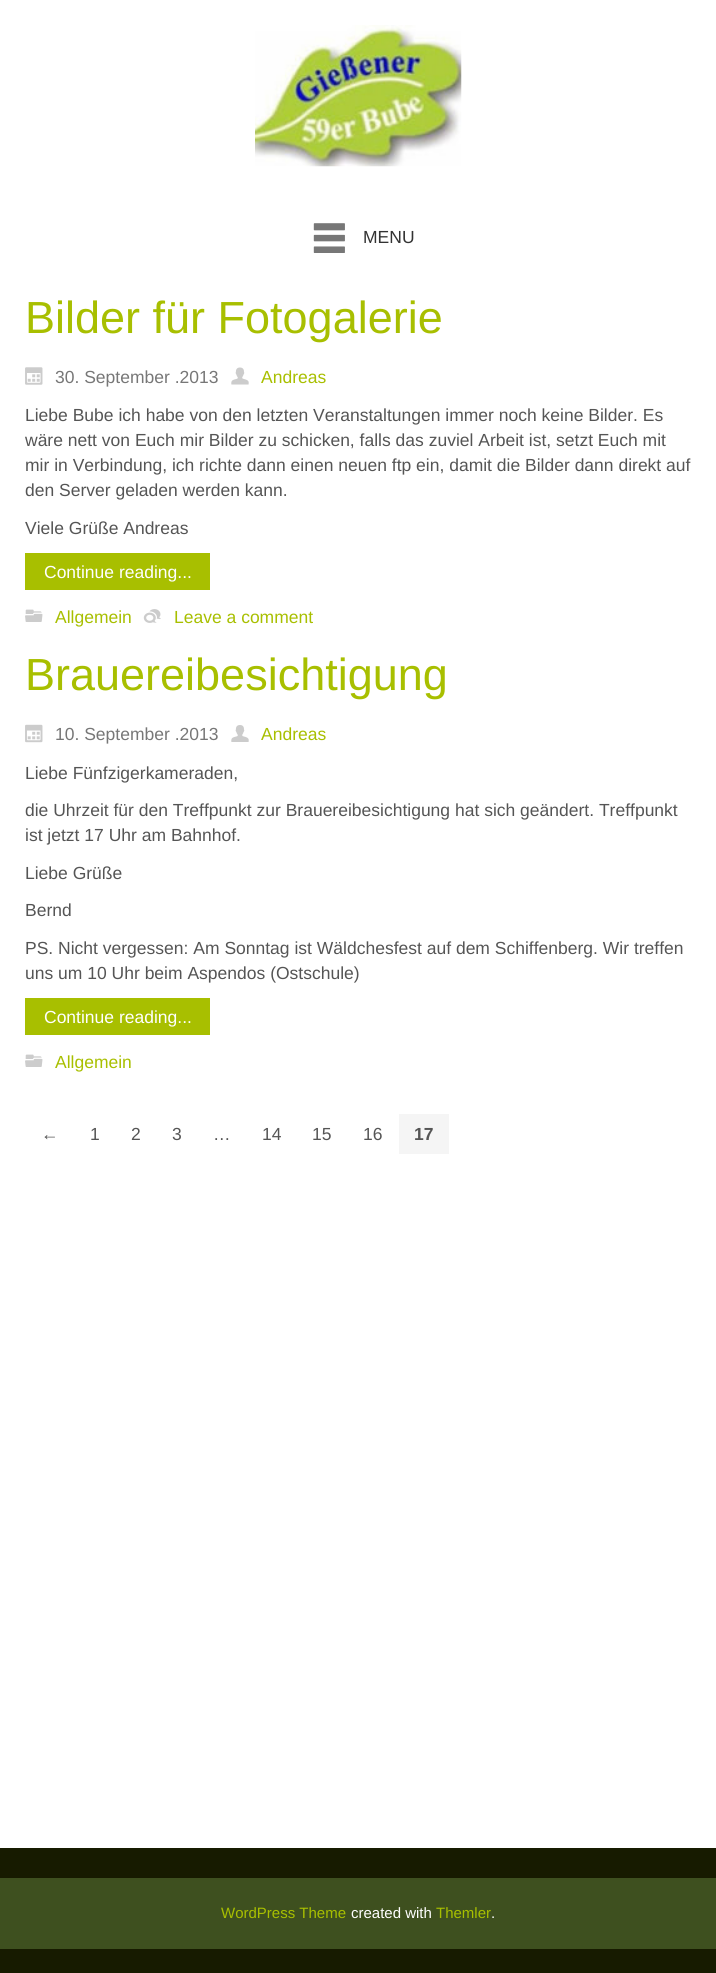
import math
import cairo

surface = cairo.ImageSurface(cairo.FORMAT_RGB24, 716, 1973)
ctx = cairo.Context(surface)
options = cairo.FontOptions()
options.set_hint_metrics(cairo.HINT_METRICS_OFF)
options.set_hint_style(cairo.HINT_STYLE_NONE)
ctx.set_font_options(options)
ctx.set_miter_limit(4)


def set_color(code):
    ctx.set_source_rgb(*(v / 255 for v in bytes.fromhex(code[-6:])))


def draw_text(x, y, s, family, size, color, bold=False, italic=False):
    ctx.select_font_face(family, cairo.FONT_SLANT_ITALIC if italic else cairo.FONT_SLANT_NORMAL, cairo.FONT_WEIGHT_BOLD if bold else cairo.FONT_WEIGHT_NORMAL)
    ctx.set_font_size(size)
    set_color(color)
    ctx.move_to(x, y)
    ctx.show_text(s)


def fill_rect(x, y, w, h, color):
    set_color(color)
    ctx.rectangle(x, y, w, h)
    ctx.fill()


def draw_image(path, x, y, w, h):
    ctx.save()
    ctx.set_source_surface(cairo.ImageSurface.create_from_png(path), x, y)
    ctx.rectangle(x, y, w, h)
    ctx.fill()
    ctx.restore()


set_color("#ffffff")
ctx.paint()
draw_image("assets/img1.png", 255, 25, 207, 142)
draw_image("assets/img2.png", 313, 223, 32, 30)
draw_text(363, 243, "MENU", "Liberation Sans", 17.5, "#333333")
draw_text(25, 333, "Bilder für Fotogalerie", "Liberation Sans", 45, "#a8bf00")
draw_image("assets/img3.png", 25, 367, 18, 18)
draw_text(55, 383, "30. September .2013", "Liberation Sans", 17.5, "#777777")
draw_image("assets/img4.png", 231, 367, 18, 18)
draw_text(261, 383, "Andreas", "Liberation Sans", 17.5, "#a8bf00")
draw_text(25, 421, "Liebe Bube ich habe von den letzten Veranstaltungen immer noch keine Bilder. Es", "Liberation Sans", 17.5, "#555555")
draw_text(25, 446, "wäre nett von Euch mir Bilder zu schicken, falls das zuviel Arbeit ist, setzt Euch mit", "Liberation Sans", 17.5, "#555555")
draw_text(25, 471, "mir in Verbindung, ich richte dann einen neuen ftp ein, damit die Bilder dann direkt auf", "Liberation Sans", 17.5, "#555555")
draw_text(25, 496, "den Server geladen werden kann.", "Liberation Sans", 17.5, "#555555")
draw_text(25, 534, "Viele Grüße Andreas", "Liberation Sans", 17.5, "#555555")
fill_rect(25, 553, 185, 37, "#a8bf00")
draw_text(44, 578, "Continue reading...", "Liberation Sans", 17.5, "#ffffff")
draw_image("assets/img5.png", 25, 609, 18, 13)
draw_text(55, 623, "Allgemein", "Liberation Sans", 17.5, "#a8bf00")
draw_image("assets/img6.png", 143, 609, 18, 14)
draw_text(174, 623, "Leave a comment", "Liberation Sans", 17.5, "#a8bf00")
draw_text(25, 690, "Brauereibesichtigung", "Liberation Sans", 45, "#a8bf00")
draw_image("assets/img7.png", 25, 724, 18, 19)
draw_text(55, 740, "10. September .2013", "Liberation Sans", 17.5, "#777777")
draw_image("assets/img8.png", 231, 725, 18, 17)
draw_text(261, 740, "Andreas", "Liberation Sans", 17.5, "#a8bf00")
draw_text(25, 779, "Liebe Fünfzigerkameraden,", "Liberation Sans", 17.5, "#555555")
draw_text(25, 816, "die Uhrzeit für den Treffpunkt zur Brauereibesichtigung hat sich geändert. Treffpunkt", "Liberation Sans", 17.5, "#555555")
draw_text(25, 841, "ist jetzt 17 Uhr am Bahnhof.", "Liberation Sans", 17.5, "#555555")
draw_text(25, 879, "Liebe Grüße", "Liberation Sans", 17.5, "#555555")
draw_text(25, 916, "Bernd", "Liberation Sans", 17.5, "#555555")
draw_text(25, 954, "PS. Nicht vergessen: Am Sonntag ist Wäldchesfest auf dem Schiffenberg. Wir treffen", "Liberation Sans", 17.5, "#555555")
draw_text(25, 979, "uns um 10 Uhr beim Aspendos (Ostschule)", "Liberation Sans", 17.5, "#555555")
fill_rect(25, 998, 185, 37, "#a8bf00")
draw_text(44, 1023, "Continue reading...", "Liberation Sans", 17.5, "#ffffff")
draw_image("assets/img5.png", 25, 1054, 18, 13)
draw_text(55, 1068, "Allgemein", "Liberation Sans", 17.5, "#a8bf00")
draw_text(41, 1140, "←", "Liberation Sans", 17.5, "#555555")
draw_text(90, 1140, "1", "Liberation Sans", 17.5, "#555555")
draw_text(131, 1140, "2", "Liberation Sans", 17.5, "#555555")
draw_text(172, 1140, "3", "Liberation Sans", 17.5, "#555555")
draw_text(213, 1140, "…", "Liberation Sans", 17.5, "#555555")
draw_text(262, 1140, "14", "Liberation Sans", 17.5, "#555555")
draw_text(312, 1140, "15", "Liberation Sans", 17.5, "#555555")
draw_text(363, 1140, "16", "Liberation Sans", 17.5, "#555555")
fill_rect(399, 1114, 50, 40, "#f5f5f5")
draw_text(414, 1140, "17", "Liberation Sans", 17.5, "#555555", bold=True)
fill_rect(0, 1848, 716, 125, "#171b00")
fill_rect(0, 1878, 716, 71, "#3e501f")
draw_text(221, 1918, "WordPress Theme", "Liberation Sans", 15, "#a8bf00")
draw_text(351, 1918, "created with", "Liberation Sans", 15, "#ffffff")
draw_text(436, 1918, "Themler", "Liberation Sans", 15, "#a8bf00")
draw_text(491, 1918, ".", "Liberation Sans", 15, "#ffffff")
surface.write_to_png("output.png")
